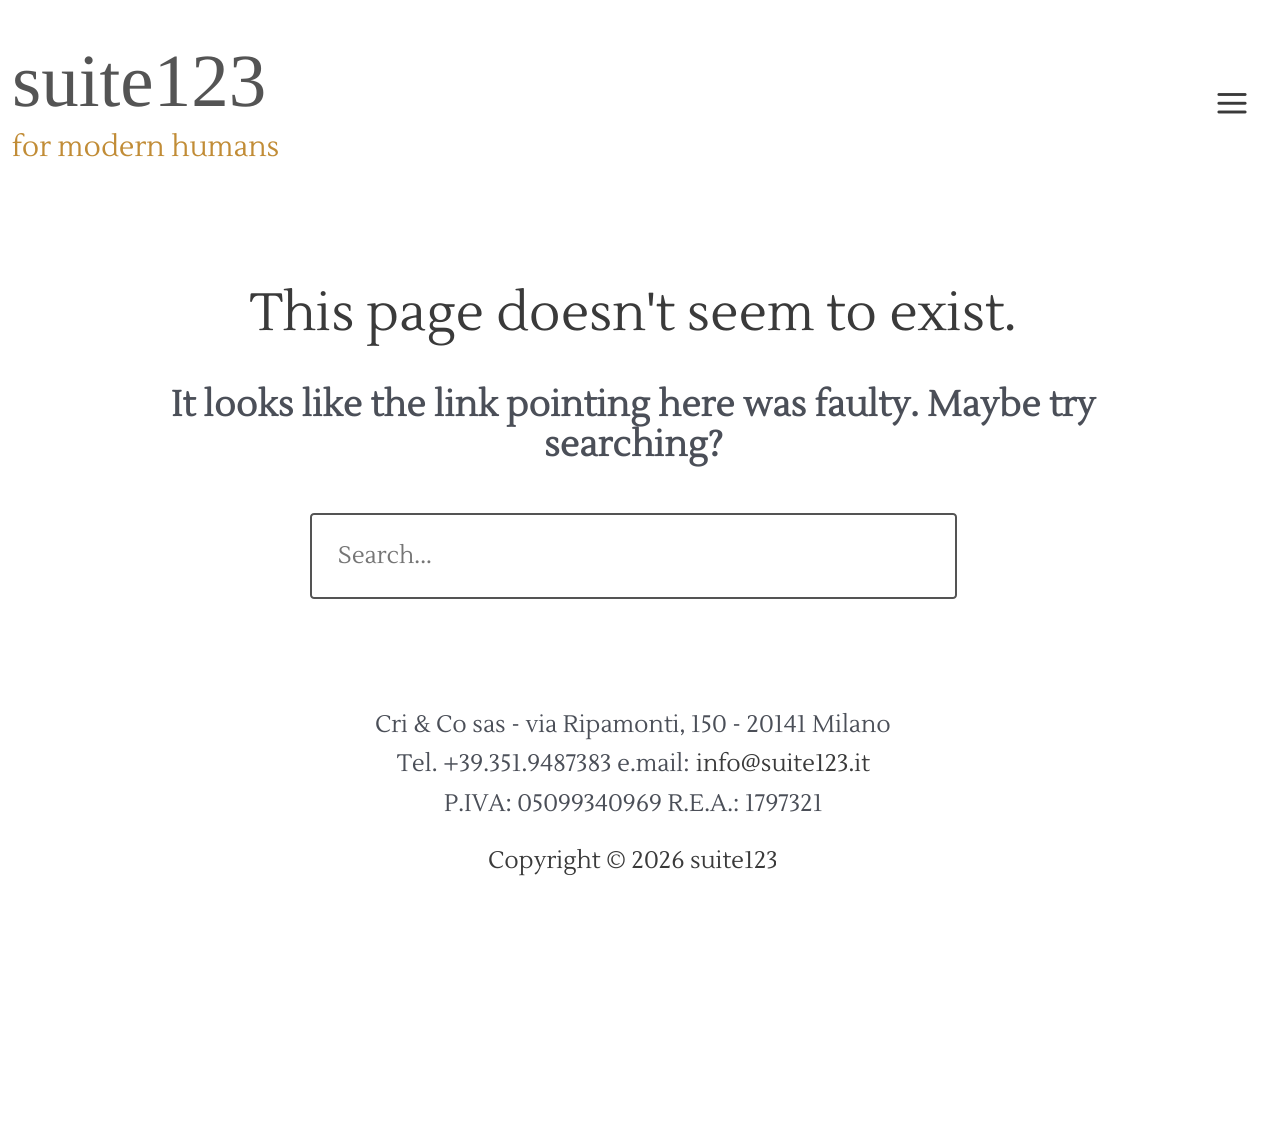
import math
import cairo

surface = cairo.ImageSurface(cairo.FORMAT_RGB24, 1267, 1144)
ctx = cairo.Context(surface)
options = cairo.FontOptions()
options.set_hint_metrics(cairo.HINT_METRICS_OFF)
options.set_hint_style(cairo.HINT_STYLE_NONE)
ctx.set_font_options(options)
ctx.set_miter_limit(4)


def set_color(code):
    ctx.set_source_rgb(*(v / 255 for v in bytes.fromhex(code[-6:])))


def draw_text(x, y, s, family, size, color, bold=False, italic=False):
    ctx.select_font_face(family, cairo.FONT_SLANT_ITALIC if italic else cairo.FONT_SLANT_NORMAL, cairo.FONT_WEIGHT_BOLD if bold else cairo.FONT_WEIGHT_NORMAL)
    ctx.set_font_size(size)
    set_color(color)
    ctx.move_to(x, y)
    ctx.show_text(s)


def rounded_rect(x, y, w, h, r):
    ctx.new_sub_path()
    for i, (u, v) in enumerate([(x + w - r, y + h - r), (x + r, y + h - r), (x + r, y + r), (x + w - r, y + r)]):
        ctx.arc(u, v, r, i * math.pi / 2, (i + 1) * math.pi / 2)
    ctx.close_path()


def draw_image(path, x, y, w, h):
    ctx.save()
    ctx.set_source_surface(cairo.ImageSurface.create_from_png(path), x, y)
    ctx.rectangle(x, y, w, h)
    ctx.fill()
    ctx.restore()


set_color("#ffffff")
ctx.paint()
draw_text(12, 106, "suite123", "Liberation Serif", 75, "#545454")
draw_text(12, 156, "for modern humans", "Lustria", 28.75, "#c18c36")
draw_image("assets/img1.png", 1217, 93, 30, 21)
draw_text(250, 330, "This page doesn't seem to exist.", "Lustria", 52.5, "#3a3a3a")
draw_text(171, 416, "It looks like the link pointing here was faulty. Maybe try", "Lustria", 35.9, "#4b4f58", bold=True)
draw_text(544, 456, "searching?", "Lustria", 35.9, "#4b4f58", bold=True)
rounded_rect(311, 514, 645, 84, 3)
set_color("#545454")
ctx.stroke()
draw_text(338, 563, "Search...", "Lustria", 23.9, "#757575")
draw_text(375, 732, "Cri & Co sas - via Ripamonti, 150 - 20141 Milano", "Lustria", 23.9, "#4b4f58")
draw_text(397, 771, "Tel. +39.351.9487383 e.mail:", "Lustria", 23.9, "#4b4f58")
draw_text(696, 771, "info@suite123.it", "Lustria", 23.9, "#3a3a3a")
draw_text(444, 811, "P.IVA: 05099340969 R.E.A.: 1797321", "Lustria", 23.9, "#4b4f58")
draw_text(488, 868, "Copyright © 2026 suite123", "Lustria", 23.9, "#3a3a3a")
surface.write_to_png("output.png")
